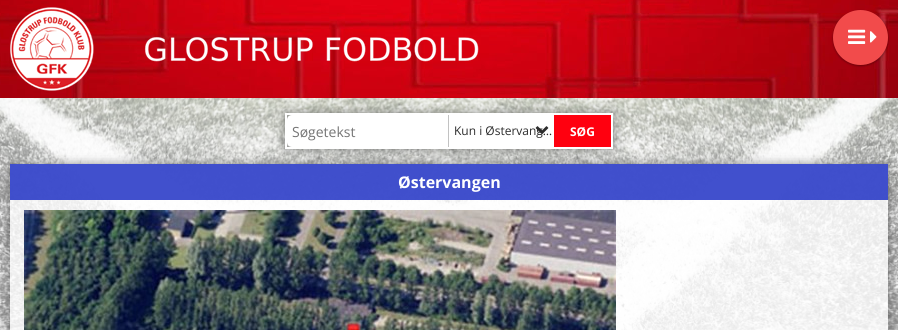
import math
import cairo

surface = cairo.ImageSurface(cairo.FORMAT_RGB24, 898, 330)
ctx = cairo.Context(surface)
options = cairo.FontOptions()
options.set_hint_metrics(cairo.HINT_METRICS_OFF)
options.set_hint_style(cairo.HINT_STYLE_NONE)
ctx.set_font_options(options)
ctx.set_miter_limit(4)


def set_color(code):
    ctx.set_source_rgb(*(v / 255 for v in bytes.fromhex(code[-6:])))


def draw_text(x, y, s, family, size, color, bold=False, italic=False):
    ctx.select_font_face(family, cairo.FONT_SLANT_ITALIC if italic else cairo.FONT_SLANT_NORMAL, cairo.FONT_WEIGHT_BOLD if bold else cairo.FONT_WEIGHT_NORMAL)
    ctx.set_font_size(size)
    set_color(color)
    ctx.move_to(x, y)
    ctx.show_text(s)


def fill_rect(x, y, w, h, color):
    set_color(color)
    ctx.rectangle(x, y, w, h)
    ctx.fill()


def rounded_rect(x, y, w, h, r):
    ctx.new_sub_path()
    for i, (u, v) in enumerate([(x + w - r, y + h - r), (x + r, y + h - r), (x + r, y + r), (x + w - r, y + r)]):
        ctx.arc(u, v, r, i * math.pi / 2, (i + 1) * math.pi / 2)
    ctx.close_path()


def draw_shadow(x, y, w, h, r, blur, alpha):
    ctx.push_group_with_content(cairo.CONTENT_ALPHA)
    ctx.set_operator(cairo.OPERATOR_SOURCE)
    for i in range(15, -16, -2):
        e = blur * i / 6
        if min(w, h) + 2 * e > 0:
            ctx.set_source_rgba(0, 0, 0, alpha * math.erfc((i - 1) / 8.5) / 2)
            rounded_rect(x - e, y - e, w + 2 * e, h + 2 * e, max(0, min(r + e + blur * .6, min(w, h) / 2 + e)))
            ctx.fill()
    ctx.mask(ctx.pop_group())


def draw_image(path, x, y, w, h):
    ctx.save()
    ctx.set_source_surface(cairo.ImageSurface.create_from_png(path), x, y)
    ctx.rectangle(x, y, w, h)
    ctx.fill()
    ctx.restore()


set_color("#ffffff")
ctx.paint()
draw_image("assets/img1.png", 0, 98, 898, 232)
ctx.set_source_rgba(1, 1, 1, 0.5)
ctx.rectangle(0, 98, 898, 232)
ctx.fill()
ctx.save()
ctx.set_fill_rule(cairo.FILL_RULE_EVEN_ODD)
ctx.new_path()
ctx.move_to(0, 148)
ctx.line_to(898, 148)
ctx.line_to(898, 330)
ctx.line_to(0, 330)
ctx.close_path()
ctx.move_to(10, 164)
ctx.line_to(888, 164)
ctx.line_to(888, 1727)
ctx.line_to(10, 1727)
ctx.close_path()
ctx.clip()
set_color("#303030")
draw_shadow(10, 164, 878, 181, 0, 5, 0.5)
ctx.restore()
ctx.set_source_rgba(1, 1, 1, 0.8)
ctx.rectangle(10, 164, 878, 166)
ctx.fill()
ctx.set_source_rgba(0.176, 0.239, 0.784, 0.9)
ctx.rectangle(10, 164, 878, 36)
ctx.fill()
set_color("#303030")
draw_shadow(285, 113, 328, 36, 0, 5, 0.5)
draw_image("assets/img2.png", 0, 0, 898, 98)
draw_image("assets/img3.png", 10, 7, 469, 84)
set_color("#000000")
draw_shadow(833, 11, 55, 55, 27.5, 1, 0.24)
draw_shadow(833, 11, 55, 55, 27.5, 1.5, 0.12)
set_color("#f24b4b")
ctx.arc(860.5, 37.5, 27.5, 0, 2 * math.pi)
ctx.fill()
draw_image("assets/img4.png", 848, 29, 18, 15)
draw_image("assets/img5.png", 870, 31, 7, 12)
ctx.rectangle(286, 114, 326, 34)
set_color("#ffffff")
ctx.stroke()
ctx.new_path()
ctx.move_to(292, 115)
ctx.line_to(452, 115)
ctx.line_to(452, 147)
ctx.line_to(292, 147)
ctx.curve_to(289, 147, 287, 145, 287, 142)
ctx.line_to(287, 120)
ctx.curve_to(287, 117, 289, 115, 292, 115)
ctx.close_path()
ctx.fill()
draw_text(292, 137, "Søgetekst", "Open Sans", 14, "#757575")
fill_rect(452, 115, 102, 32, "#ffffff")
fill_rect(448, 115, 1, 32, "#c2c2c2")
draw_text(454, 135, "Kun i Østervang…", "Open Sans", 12, "#2c2c2c")
draw_image("assets/img6.png", 535, 126, 14, 9)
fill_rect(554, 115, 57, 32, "#ff000f")
draw_text(570, 136, "SØG", "Open Sans", 12, "#ffffff", bold=True)
draw_text(398, 188, "Østervangen", "Open Sans", 16, "#ffffff", bold=True)
draw_image("assets/img7.png", 24, 210, 592, 120)
surface.write_to_png("output.png")
